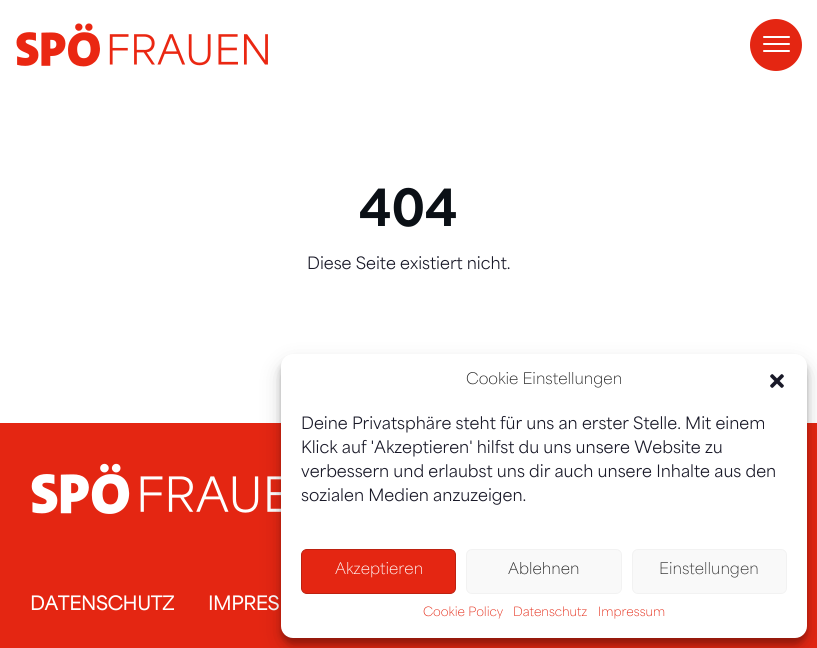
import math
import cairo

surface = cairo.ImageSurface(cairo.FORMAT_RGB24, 817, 648)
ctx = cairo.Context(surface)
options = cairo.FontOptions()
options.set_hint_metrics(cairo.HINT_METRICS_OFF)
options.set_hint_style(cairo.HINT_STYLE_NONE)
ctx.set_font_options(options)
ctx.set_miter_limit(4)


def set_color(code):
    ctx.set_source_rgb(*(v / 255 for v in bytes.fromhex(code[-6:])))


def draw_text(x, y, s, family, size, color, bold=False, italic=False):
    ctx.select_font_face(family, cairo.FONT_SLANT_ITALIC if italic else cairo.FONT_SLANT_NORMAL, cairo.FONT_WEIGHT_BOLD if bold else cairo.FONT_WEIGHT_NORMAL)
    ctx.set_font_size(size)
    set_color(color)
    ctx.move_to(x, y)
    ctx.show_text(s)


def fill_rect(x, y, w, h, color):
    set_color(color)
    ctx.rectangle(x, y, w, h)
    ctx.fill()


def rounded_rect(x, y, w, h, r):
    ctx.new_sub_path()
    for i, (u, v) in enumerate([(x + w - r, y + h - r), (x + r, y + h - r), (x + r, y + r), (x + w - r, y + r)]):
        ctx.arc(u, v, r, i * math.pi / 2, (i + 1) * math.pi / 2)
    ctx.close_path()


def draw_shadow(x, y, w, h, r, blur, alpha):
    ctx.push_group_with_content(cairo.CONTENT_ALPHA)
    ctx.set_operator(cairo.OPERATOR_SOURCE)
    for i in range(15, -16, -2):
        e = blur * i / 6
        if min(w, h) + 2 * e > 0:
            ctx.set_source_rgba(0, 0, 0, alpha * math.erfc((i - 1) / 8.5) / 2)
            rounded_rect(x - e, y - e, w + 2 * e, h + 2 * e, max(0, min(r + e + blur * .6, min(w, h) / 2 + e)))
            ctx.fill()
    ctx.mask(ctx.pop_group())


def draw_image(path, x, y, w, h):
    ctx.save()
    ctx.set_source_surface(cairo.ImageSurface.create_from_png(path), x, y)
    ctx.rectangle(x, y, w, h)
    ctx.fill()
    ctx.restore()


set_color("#ffffff")
ctx.paint()
draw_image("assets/img1.png", 16, 23, 252, 44)
set_color("#e42612")
ctx.arc(776, 45, 26, 0, 2 * math.pi)
ctx.fill()
set_color("#ffffff")
rounded_rect(763, 50, 27, 2, 1)
ctx.fill()
rounded_rect(763, 36, 27, 2, 1)
ctx.fill()
rounded_rect(763, 43, 27, 2, 1)
ctx.fill()
draw_text(359, 226, "404", "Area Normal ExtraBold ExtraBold", 48, "#0b1016")
draw_text(307, 269, "Diese Seite existiert nicht.", "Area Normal", 16, "#191928")
fill_rect(0, 423, 817, 225, "#e42612")
draw_image("assets/img2.png", 31, 463, 250, 51)
draw_text(30, 610, "DATENSCHUTZ", "Area Normal", 18, "#ffffff", bold=True)
draw_text(208, 610, "IMPRES", "Area Normal", 18, "#ffffff", bold=True)
set_color("#000000")
draw_shadow(281, 360, 526, 284, 12, 3, 0.23)
draw_shadow(281, 364, 526, 284, 12, 10, 0.19)
set_color("#ffffff")
rounded_rect(281, 354, 526, 284, 12)
ctx.fill()
draw_text(466, 384, "Cookie Einstellungen", "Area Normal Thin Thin", 15, "#222222")
draw_image("assets/img3.png", 770, 374, 14, 14)
draw_text(301, 429, "Deine Privatsphäre steht für uns an erster Stelle. Mit einem", "Area Normal", 16, "#191928")
draw_text(301, 453, "Klick auf 'Akzeptieren' hilfst du uns unsere Website zu", "Area Normal", 16, "#191928")
draw_text(301, 477, "verbessern und erlaubst uns dir auch unsere Inhalte aus den", "Area Normal", 16, "#191928")
draw_text(301, 501, "sozialen Medien anzuzeigen.", "Area Normal", 16, "#191928")
set_color("#e42612")
rounded_rect(301.5, 549.5, 154, 44, 5.5)
ctx.fill_preserve()
set_color("#bd2110")
ctx.set_line_width(1)
ctx.stroke()
draw_text(335, 574, "Akzeptieren", "Area Normal Thin Thin", 15, "#ffffff")
set_color("#f9f9f9")
rounded_rect(466.5, 549.5, 155, 44, 5.5)
ctx.fill_preserve()
set_color("#f2f2f2")
ctx.stroke()
draw_text(508, 574, "Ablehnen", "Area Normal Thin Thin", 15, "#222222")
set_color("#f9f9f9")
rounded_rect(632.5, 549.5, 154, 44, 5.5)
ctx.fill_preserve()
set_color("#f2f2f2")
ctx.stroke()
draw_text(659, 574, "Einstellungen", "Area Normal Thin Thin", 15, "#333333")
draw_text(423, 616, "Cookie Policy", "Area Normal Thin Thin", 12, "#e42612")
draw_text(513, 616, "Datenschutz", "Area Normal Thin Thin", 12, "#e42612")
draw_text(598, 616, "Impressum", "Area Normal Thin Thin", 12, "#e42612")
surface.write_to_png("output.png")
